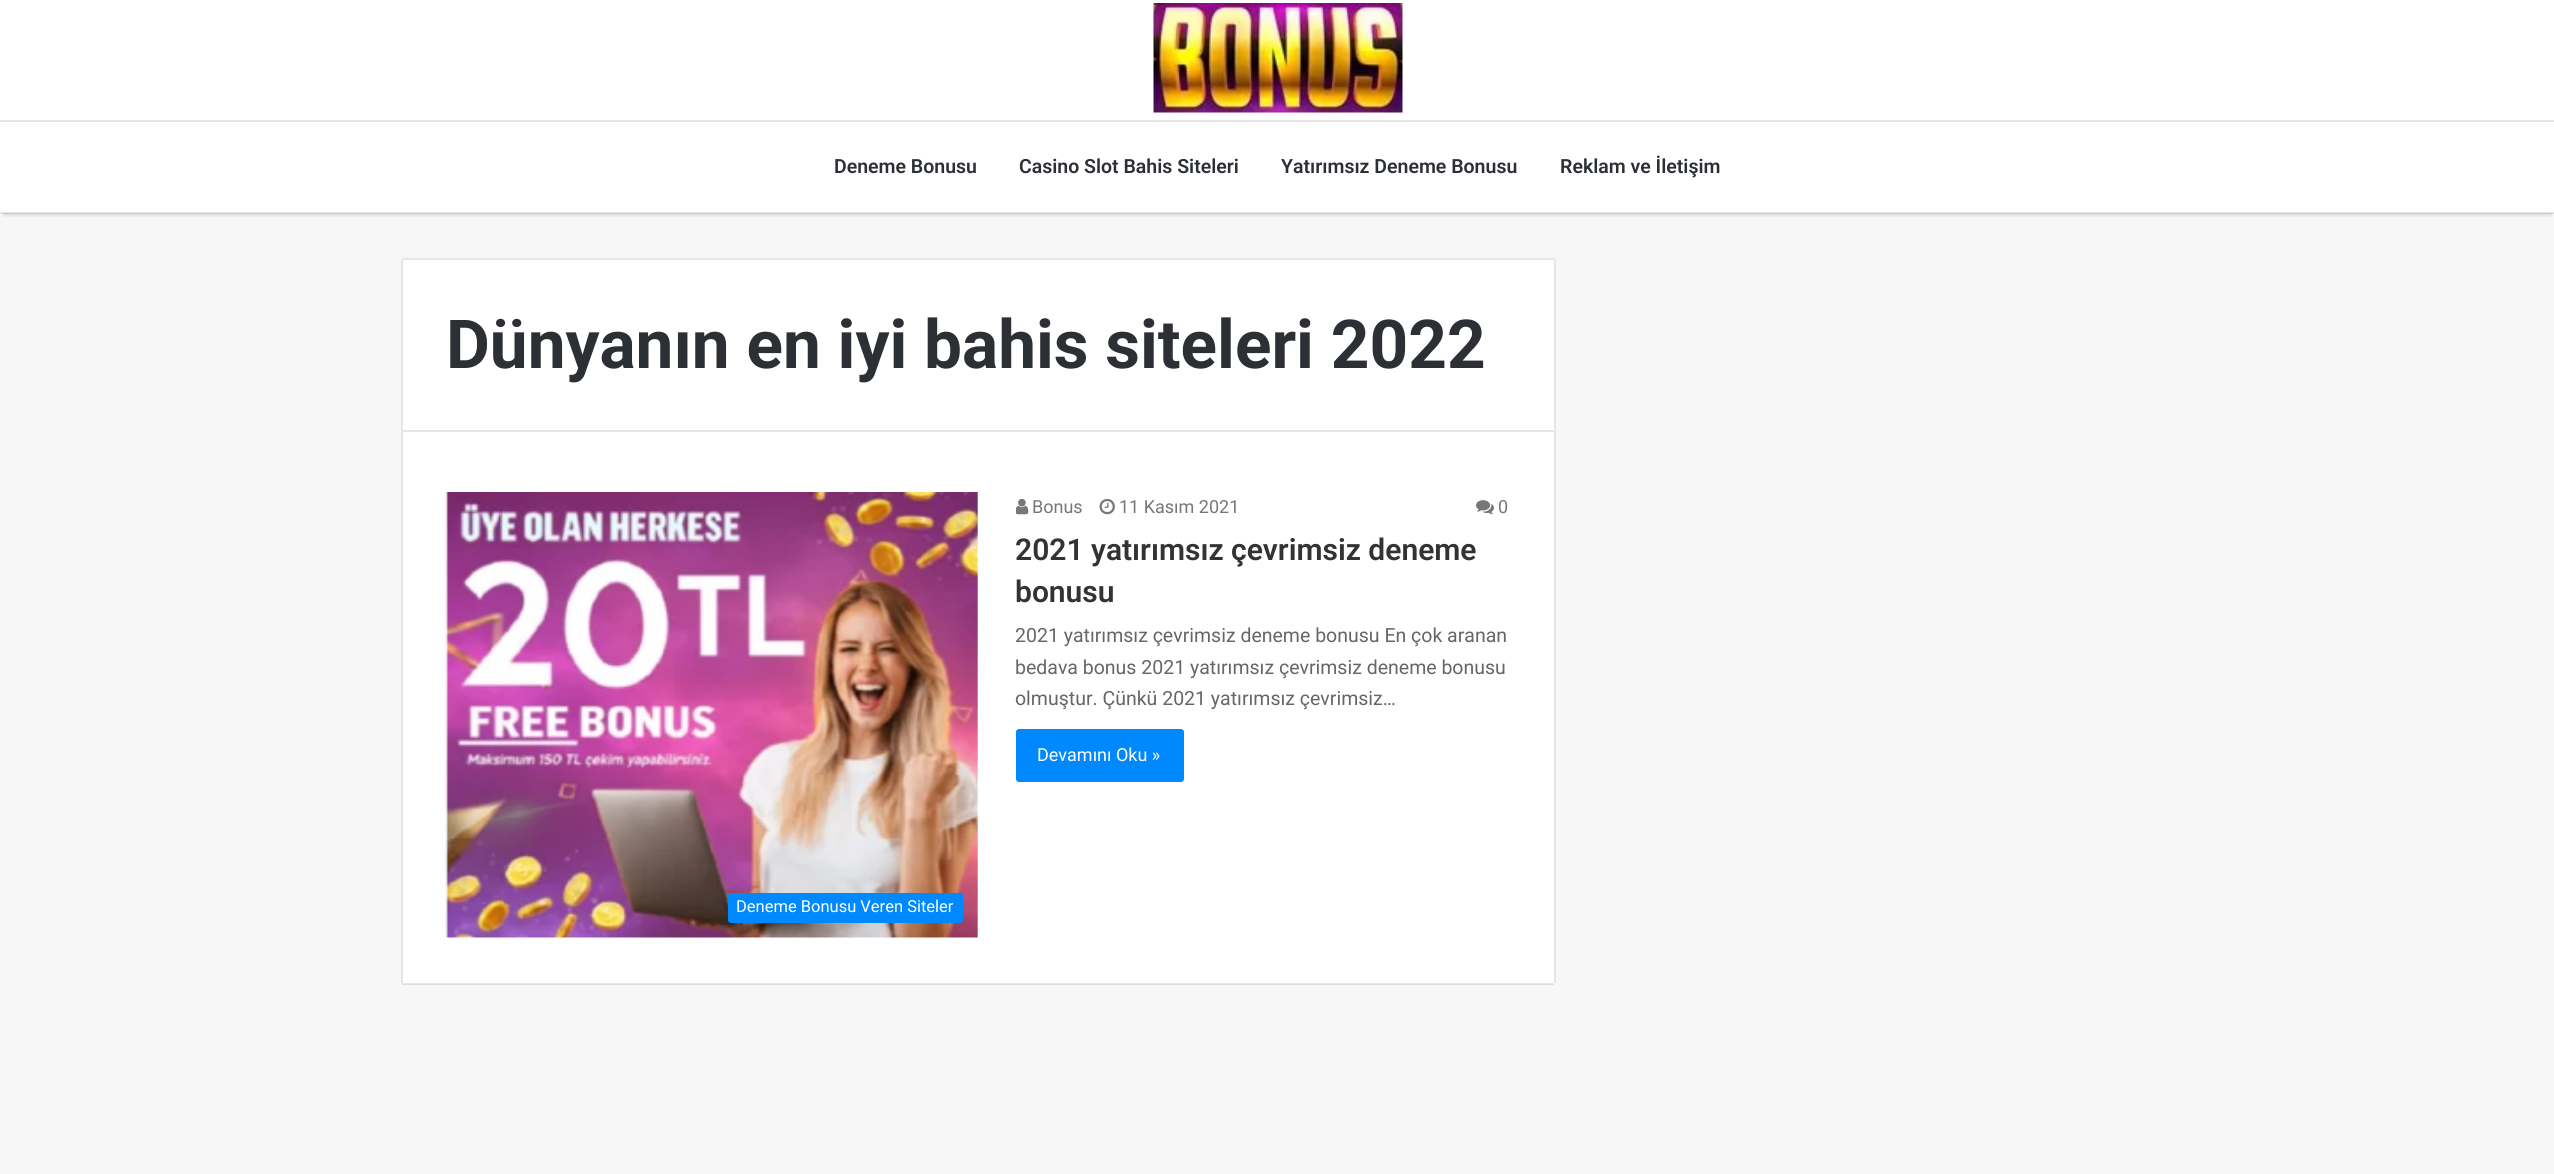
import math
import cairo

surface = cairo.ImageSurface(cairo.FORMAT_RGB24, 2554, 1174)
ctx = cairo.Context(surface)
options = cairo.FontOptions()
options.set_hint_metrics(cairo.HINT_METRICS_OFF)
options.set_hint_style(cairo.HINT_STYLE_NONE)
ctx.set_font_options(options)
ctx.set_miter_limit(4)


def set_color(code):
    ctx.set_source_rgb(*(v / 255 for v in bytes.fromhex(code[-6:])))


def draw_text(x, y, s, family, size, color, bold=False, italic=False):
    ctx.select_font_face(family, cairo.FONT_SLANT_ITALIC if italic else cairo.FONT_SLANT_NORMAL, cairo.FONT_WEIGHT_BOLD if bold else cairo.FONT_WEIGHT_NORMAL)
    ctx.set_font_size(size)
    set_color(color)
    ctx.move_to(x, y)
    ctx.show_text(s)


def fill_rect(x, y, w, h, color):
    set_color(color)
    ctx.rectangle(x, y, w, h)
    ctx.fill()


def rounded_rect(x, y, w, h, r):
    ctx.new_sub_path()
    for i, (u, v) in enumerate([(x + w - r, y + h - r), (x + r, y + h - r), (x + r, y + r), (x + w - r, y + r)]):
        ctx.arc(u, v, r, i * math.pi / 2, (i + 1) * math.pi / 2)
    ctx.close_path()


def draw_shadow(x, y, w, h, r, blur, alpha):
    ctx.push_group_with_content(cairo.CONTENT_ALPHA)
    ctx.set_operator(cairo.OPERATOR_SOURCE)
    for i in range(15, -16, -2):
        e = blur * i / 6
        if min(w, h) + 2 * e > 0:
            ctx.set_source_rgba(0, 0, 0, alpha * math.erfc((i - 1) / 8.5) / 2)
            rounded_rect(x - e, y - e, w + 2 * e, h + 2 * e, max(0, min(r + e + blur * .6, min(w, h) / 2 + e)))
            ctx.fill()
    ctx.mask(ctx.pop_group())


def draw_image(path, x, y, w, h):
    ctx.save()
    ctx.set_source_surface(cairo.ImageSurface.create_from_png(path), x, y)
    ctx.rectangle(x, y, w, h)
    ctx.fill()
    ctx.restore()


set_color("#f7f7f7")
ctx.paint()
fill_rect(0, 0, 2554, 213, "#ffffff")
ctx.save()
ctx.rectangle(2, 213, 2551, 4)
ctx.clip()
set_color("#000000")
draw_shadow(3, 9, 2549, 207, 0, 1.5, 0.1)
ctx.restore()
draw_image("assets/img1.png", 1153, 3, 250, 110)
fill_rect(0, 120, 2554, 2, "#e6e6e6")
ctx.set_source_rgba(0, 0, 0, 0.1)
ctx.rectangle(0, 212, 2554, 2)
ctx.fill()
draw_text(834, 173, "Deneme Bonusu", "Roboto SemiBold", 19.5, "#2c2f34")
draw_text(1019, 173, "Casino Slot Bahis Siteleri", "Roboto SemiBold", 19.5, "#2c2f34")
draw_text(1281, 173, "Yatırımsız Deneme Bonusu", "Roboto SemiBold", 19.5, "#2c2f34")
draw_text(1560, 173, "Reklam ve İletişim", "Roboto SemiBold", 19.5, "#2c2f34")
set_color("#ffffff")
ctx.new_path()
ctx.move_to(404, 258)
ctx.line_to(1553, 258)
ctx.curve_to(1554.5, 258, 1556, 259.5, 1556, 261)
ctx.line_to(1556, 432)
ctx.line_to(401, 432)
ctx.line_to(401, 261)
ctx.curve_to(401, 259.5, 402.5, 258, 404, 258)
ctx.close_path()
ctx.fill()
ctx.new_path()
ctx.move_to(404, 259)
ctx.line_to(1553, 259)
ctx.curve_to(1554, 259, 1555, 260, 1555, 261)
ctx.line_to(1555, 431)
ctx.line_to(402, 431)
ctx.line_to(402, 261)
ctx.curve_to(402, 260, 403, 259, 404, 259)
ctx.close_path()
ctx.set_source_rgba(0, 0, 0, 0.1)
ctx.stroke()
draw_text(446, 368, "Dünyanın en iyi bahis siteleri 2022", "Roboto", 67.5, "#2c2f34", bold=True)
set_color("#ffffff")
ctx.new_path()
ctx.move_to(401, 432)
ctx.line_to(1556, 432)
ctx.line_to(1556, 981)
ctx.curve_to(1556, 982.5, 1554.5, 984, 1553, 984)
ctx.line_to(404, 984)
ctx.curve_to(402.5, 984, 401, 982.5, 401, 981)
ctx.close_path()
ctx.fill()
ctx.set_source_rgba(0, 0, 0, 0.1)
ctx.rectangle(1554, 432, 2, 551)
ctx.fill()
ctx.rectangle(402, 983, 1152, 2)
ctx.fill()
ctx.rectangle(401, 432, 2, 551)
ctx.fill()
draw_image("assets/img2.png", 1016, 498, 13, 17)
draw_text(1032, 513, "Bonus", "Roboto", 18, "#777777")
draw_image("assets/img3.png", 1099, 498, 16, 17)
draw_text(1119, 513, "11 Kasım 2021", "Roboto", 18, "#777777")
draw_image("assets/img4.png", 1476, 500, 18, 15)
draw_text(1498, 513, "0", "Roboto", 18, "#777777")
draw_text(1015, 560, "2021 yatırımsız çevrimsiz deneme", "Roboto SemiBold", 30, "#333333")
draw_text(1015, 602, "bonusu", "Roboto SemiBold", 30, "#333333")
draw_text(1015, 642, "2021 yatırımsız çevrimsiz deneme bonusu En çok aranan", "Roboto", 19.5, "#666666")
draw_text(1015, 674, "bedava bonus 2021 yatırımsız çevrimsiz deneme bonusu", "Roboto", 19.5, "#666666")
draw_text(1015, 705, "olmuştur. Çünkü 2021 yatırımsız çevrimsiz…", "Roboto", 19.5, "#666666")
set_color("#0088ff")
rounded_rect(1016, 729, 168, 53, 3)
ctx.fill()
draw_text(1037, 761, "Devamını Oku »", "Roboto", 18, "#ffffff")
draw_image("assets/img5.png", 445, 492, 533, 446)
set_color("#0088ff")
rounded_rect(728, 893, 235, 30, 3)
ctx.fill()
draw_text(736, 912, "Deneme Bonusu Veren Siteler", "Roboto", 16.5, "#ffffff")
surface.write_to_png("output.png")
